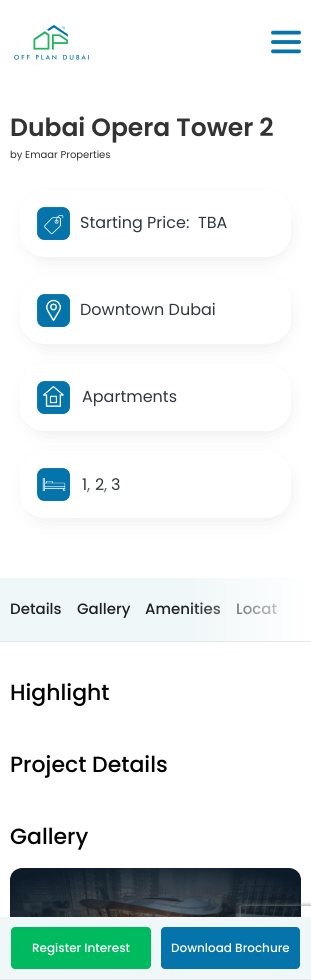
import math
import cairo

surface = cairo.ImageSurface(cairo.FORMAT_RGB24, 311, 980)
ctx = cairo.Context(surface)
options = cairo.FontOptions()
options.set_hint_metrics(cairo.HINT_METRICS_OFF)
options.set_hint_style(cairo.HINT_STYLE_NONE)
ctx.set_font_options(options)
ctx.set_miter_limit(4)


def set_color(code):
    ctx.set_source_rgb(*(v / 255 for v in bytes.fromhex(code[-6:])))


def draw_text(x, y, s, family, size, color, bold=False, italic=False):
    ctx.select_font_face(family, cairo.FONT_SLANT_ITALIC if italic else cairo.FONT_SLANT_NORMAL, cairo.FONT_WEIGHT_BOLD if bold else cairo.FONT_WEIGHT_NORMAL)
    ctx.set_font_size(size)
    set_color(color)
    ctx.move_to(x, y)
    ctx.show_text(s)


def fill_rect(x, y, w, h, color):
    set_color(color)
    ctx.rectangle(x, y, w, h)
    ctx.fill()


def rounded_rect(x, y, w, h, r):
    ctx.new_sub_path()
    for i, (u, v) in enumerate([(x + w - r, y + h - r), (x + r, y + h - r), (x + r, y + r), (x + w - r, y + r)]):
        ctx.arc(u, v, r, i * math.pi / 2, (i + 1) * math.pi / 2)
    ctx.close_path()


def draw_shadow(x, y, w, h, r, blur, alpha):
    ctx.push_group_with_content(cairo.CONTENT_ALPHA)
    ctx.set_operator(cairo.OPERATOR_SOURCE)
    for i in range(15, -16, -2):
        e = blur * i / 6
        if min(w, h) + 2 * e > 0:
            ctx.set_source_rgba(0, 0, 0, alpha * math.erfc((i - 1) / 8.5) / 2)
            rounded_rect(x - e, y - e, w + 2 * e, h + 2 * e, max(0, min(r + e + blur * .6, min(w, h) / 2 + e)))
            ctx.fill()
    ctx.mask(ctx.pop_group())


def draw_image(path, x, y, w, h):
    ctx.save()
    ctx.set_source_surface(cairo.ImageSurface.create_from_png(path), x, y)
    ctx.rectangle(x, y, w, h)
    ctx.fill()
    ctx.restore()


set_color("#ffffff")
ctx.paint()
draw_image("assets/img1.png", 14, 24, 75, 36)
draw_image("assets/img2.png", 271, 30, 30, 24)
draw_text(10, 136, "Dubai Opera Tower 2", "Poppins SemiBold", 25, "#333333")
draw_text(10, 158, "by Emaar Properties", "Poppins", 10, "#333333")
set_color("#000000")
draw_shadow(35, 210, 245, 41, 12, 12, 0.18)
set_color("#ffffff")
rounded_rect(20, 190, 271, 67, 25)
ctx.fill()
draw_image("assets/img3.png", 37, 207, 33, 33)
draw_text(80, 228, "Starting Price:", "Poppins", 16, "#31373e")
draw_text(198, 228, "TBA", "Poppins", 16, "#31373e")
set_color("#000000")
draw_shadow(35, 297, 245, 41, 12, 12, 0.18)
set_color("#ffffff")
rounded_rect(20, 277, 271, 67, 25)
ctx.fill()
draw_image("assets/img4.png", 37, 294, 33, 33)
draw_text(80, 315, "Downtown Dubai", "Poppins", 16, "#31373e")
set_color("#000000")
draw_shadow(35, 384, 245, 41, 12, 12, 0.18)
set_color("#ffffff")
rounded_rect(20, 364, 271, 67, 25)
ctx.fill()
draw_image("assets/img5.png", 37, 381, 33, 33)
draw_text(82, 402, "Apartments", "Poppins", 16, "#31373e")
set_color("#000000")
draw_shadow(35, 471, 245, 41, 12, 12, 0.18)
set_color("#ffffff")
rounded_rect(20, 451, 271, 67, 25)
ctx.fill()
draw_image("assets/img6.png", 37, 468, 33, 33)
draw_text(82, 490, "1", "Poppins", 16, "#31373e")
draw_text(87, 490, ",", "Poppins", 16, "#666666")
draw_text(95, 490, "2", "Poppins", 16, "#31373e")
draw_text(104, 490, ",", "Poppins", 16, "#666666")
draw_text(111, 490, "3", "Poppins", 16, "#31373e")
fill_rect(0, 578, 310, 63, "#f0f7f8")
fill_rect(0, 641, 311, 1, "#e3e7e8")
draw_text(145, 614, "Amenities", "Poppins Medium", 15, "#1f2124")
draw_text(236, 614, "Locat", "Poppins Medium", 15, "#1f2124")
gradient = cairo.LinearGradient(187, 610, 311, 610)
gradient.add_color_stop_rgba(0, 1, 1, 1, 0)
gradient.add_color_stop_rgba(1, 1, 1, 1, 1)
ctx.set_source(gradient)
ctx.rectangle(191, 578, 119, 63)
ctx.fill()
draw_text(10, 614, "Details", "Poppins Medium", 15, "#1f2124")
draw_text(77, 614, "Gallery", "Poppins Medium", 15, "#1f2124")
draw_text(10, 700, "Highlight", "Poppins Medium", 22, "#000000")
draw_text(10, 772, "Project Details", "Poppins Medium", 22, "#000000")
draw_text(10, 844, "Gallery", "Poppins Medium", 22, "#000000")
draw_image("assets/img7.png", 10, 868, 291, 49)
ctx.save()
ctx.set_fill_rule(cairo.FILL_RULE_EVEN_ODD)
ctx.new_path()
ctx.move_to(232, 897)
ctx.line_to(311, 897)
ctx.line_to(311, 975)
ctx.line_to(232, 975)
ctx.close_path()
ctx.move_to(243, 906)
ctx.line_to(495, 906)
ctx.curve_to(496, 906, 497, 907, 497, 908)
ctx.line_to(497, 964)
ctx.curve_to(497, 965, 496, 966, 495, 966)
ctx.line_to(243, 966)
ctx.curve_to(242, 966, 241, 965, 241, 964)
ctx.line_to(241, 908)
ctx.curve_to(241, 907, 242, 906, 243, 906)
ctx.close_path()
ctx.clip()
set_color("#808080")
draw_shadow(241, 906, 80, 60, 2, 2.5, 1)
ctx.restore()
fill_rect(0, 917, 311, 62, "#f0f7f8")
fill_rect(0, 979, 311, 1, "#e3e7e8")
set_color("#00ba60")
rounded_rect(11, 927, 140, 42, 4)
ctx.fill()
draw_text(32, 952, "Register Interest", "Poppins Medium", 12, "#ffffff")
set_color("#0474ab")
rounded_rect(161, 927, 139, 42, 4)
ctx.fill()
draw_text(171, 952, "Download Brochure", "Poppins Medium", 12, "#ffffff")
surface.write_to_png("output.png")
